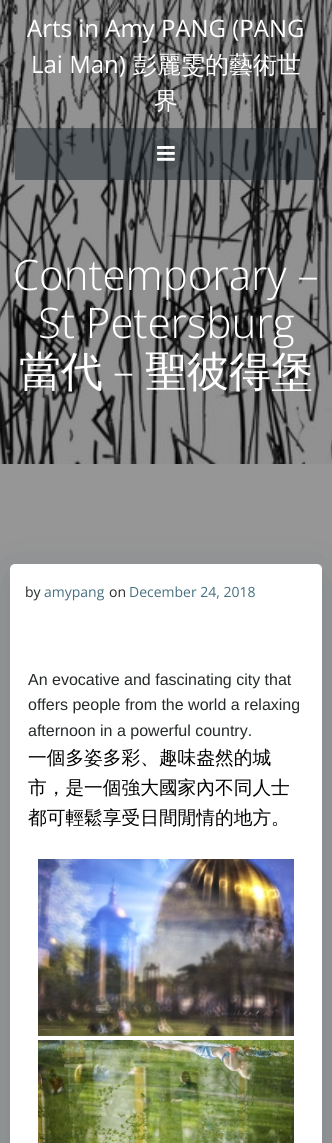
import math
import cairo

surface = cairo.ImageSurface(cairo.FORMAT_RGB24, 332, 1143)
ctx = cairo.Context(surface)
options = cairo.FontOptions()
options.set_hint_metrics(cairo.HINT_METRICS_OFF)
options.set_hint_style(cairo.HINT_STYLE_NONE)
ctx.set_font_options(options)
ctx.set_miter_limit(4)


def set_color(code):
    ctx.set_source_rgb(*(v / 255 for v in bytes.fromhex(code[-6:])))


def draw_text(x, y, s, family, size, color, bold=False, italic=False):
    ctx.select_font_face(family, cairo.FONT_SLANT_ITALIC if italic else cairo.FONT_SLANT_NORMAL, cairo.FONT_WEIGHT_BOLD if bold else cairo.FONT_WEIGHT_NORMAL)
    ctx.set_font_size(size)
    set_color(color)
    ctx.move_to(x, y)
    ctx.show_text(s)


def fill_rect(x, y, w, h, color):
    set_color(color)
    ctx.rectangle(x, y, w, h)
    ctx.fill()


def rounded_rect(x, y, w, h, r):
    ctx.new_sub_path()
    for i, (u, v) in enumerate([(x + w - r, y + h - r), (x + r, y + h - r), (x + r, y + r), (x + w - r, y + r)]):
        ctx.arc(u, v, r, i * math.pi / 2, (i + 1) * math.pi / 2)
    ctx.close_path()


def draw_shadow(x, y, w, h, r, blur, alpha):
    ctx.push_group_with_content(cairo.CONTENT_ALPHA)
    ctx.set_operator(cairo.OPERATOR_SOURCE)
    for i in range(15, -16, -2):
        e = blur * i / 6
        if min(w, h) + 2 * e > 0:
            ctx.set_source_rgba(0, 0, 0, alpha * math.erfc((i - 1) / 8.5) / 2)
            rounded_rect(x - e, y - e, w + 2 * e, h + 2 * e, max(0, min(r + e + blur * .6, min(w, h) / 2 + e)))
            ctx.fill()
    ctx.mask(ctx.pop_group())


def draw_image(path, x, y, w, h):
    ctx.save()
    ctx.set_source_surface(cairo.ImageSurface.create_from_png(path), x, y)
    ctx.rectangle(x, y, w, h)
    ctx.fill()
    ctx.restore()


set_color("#ffffff")
ctx.paint()
draw_image("assets/img2.png", 0, 0, 332, 464)
draw_text(27, 37, "Arts in Amy PANG (PANG", "Open Sans", 24, "#ffffff")
draw_text(31, 73, "Lai Man)", "Open Sans", 24, "#ffffff")
draw_text(133, 73, "彭麗雯的藝術世", "WenQuanYi Zen Hei Medium", 24, "#ffffff")
draw_text(154, 109, "界", "WenQuanYi Zen Hei Medium", 24, "#ffffff")
ctx.set_source_rgba(0.09, 0.145, 0.165, 0.48)
ctx.rectangle(15, 128, 302, 52)
ctx.fill()
ctx.set_source_rgba(0, 0, 0, 0.1)
ctx.arc(166, 154, 16, 0, 2 * math.pi)
ctx.fill()
draw_image("assets/img1.png", 157, 146, 18, 15)
draw_text(13, 290, "Contemporary –", "Open Sans Light", 42, "#ffffff")
draw_text(38, 338, "St Petersburg", "Open Sans Light", 42, "#ffffff")
draw_text(19, 386, "當代", "WenQuanYi Zen Hei Medium", 42, "#ffffff")
draw_text(113, 386, "–", "Open Sans Light", 42, "#ffffff")
draw_text(145, 386, "聖彼得堡", "WenQuanYi Zen Hei Medium", 42, "#ffffff")
fill_rect(0, 464, 332, 679, "#969696")
set_color("#01334a")
draw_shadow(10, 574, 312, 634, 5, 20, 0.15)
set_color("#ffffff")
rounded_rect(10, 564, 312, 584, 5)
ctx.fill()
draw_text(25, 597, "by", "Open Sans", 14, "#25292a")
draw_text(44, 597, "amypang", "Open Sans", 14, "#46707f")
draw_text(109, 597, "on", "Open Sans", 14, "#25292a")
draw_text(129, 597, "December 24, 2018", "Open Sans", 14, "#46707f")
draw_text(28, 685, "An evocative and fascinating city that", "Liberation Sans", 16, "#25292a")
draw_text(28, 710, "offers people from the world a relaxing", "Liberation Sans", 16, "#25292a")
draw_text(28, 736, "afternoon in a powerful country.", "Liberation Sans", 16, "#25292a")
draw_text(28, 764, "一個多姿多彩、趣味盎然的城", "WenQuanYi Zen Hei Medium", 18.7, "#000000")
draw_text(28, 794, "市，是一個強大國家內不同人士", "WenQuanYi Zen Hei Medium", 18.7, "#000000")
draw_text(28, 824, "都可輕鬆享受日間閒情的地方。", "WenQuanYi Zen Hei Medium", 18.7, "#000000")
draw_image("assets/img3.png", 38, 859, 256, 177)
draw_image("assets/img4.png", 38, 1040, 256, 103)
surface.write_to_png("output.png")
